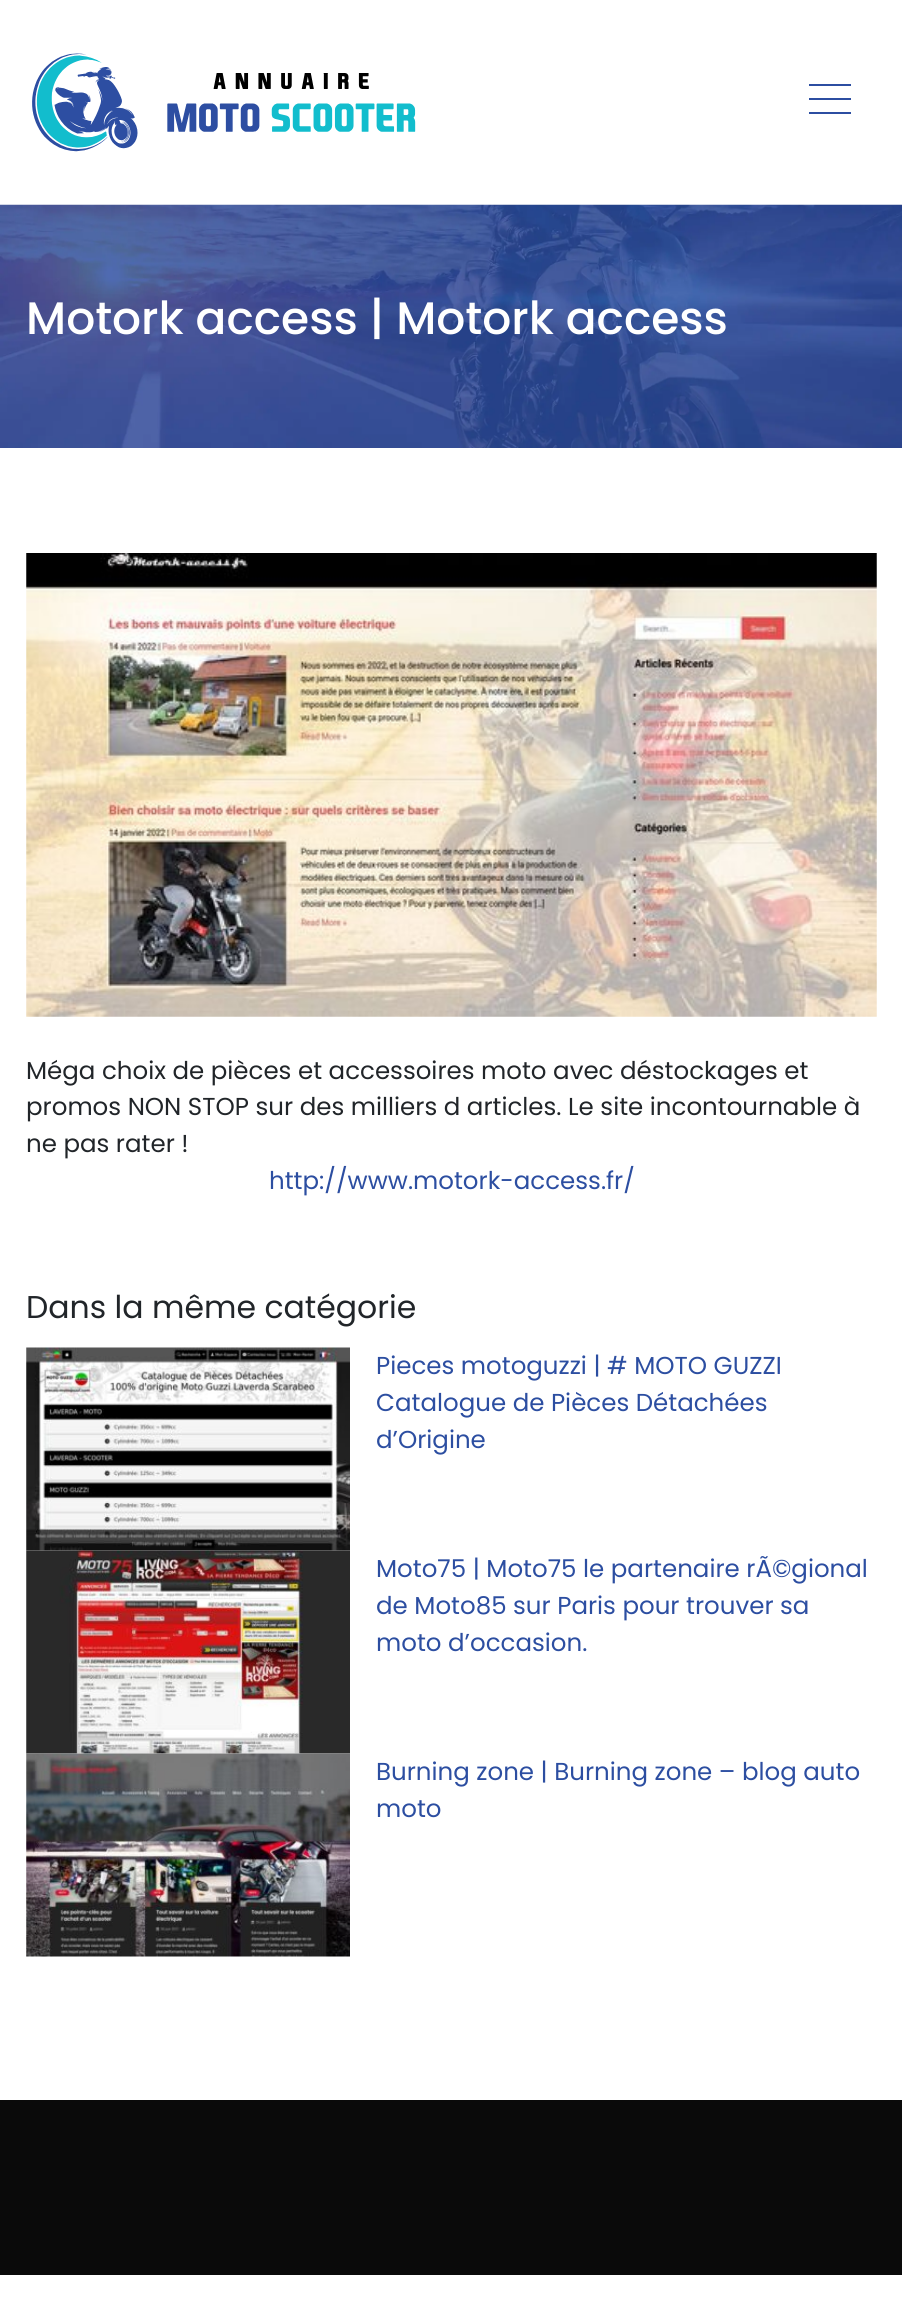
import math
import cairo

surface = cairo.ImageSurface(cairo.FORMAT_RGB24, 902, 2307)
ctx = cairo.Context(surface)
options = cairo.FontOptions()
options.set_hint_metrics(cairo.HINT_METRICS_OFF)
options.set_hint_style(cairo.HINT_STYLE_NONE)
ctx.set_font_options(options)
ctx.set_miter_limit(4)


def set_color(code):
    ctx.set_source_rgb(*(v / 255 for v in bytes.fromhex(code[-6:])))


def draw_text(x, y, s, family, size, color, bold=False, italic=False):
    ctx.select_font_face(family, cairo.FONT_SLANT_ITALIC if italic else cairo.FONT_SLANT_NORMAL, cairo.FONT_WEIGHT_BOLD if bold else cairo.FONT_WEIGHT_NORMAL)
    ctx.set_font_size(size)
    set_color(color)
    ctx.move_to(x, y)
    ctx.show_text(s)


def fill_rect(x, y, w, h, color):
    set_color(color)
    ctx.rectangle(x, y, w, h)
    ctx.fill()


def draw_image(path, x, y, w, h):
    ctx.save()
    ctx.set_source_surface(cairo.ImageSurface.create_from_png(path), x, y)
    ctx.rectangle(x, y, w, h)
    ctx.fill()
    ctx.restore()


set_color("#ffffff")
ctx.paint()
draw_image("assets/img1.png", 32, 53, 384, 99)
fill_rect(809, 84, 42, 2, "#2c4ea1")
fill_rect(809, 98, 42, 2, "#2c4ea1")
fill_rect(809, 112, 42, 2, "#2c4ea1")
draw_image("assets/img2.png", 0, 204, 902, 244)
draw_text(26, 334, "Motork access | Motork access", "Poppins Medium", 45.5, "#ffffff")
draw_image("assets/img3.png", 26, 553, 851, 464)
draw_text(26, 1079, "Méga choix de pièces et accessoires moto avec déstockages et", "Poppins", 24.5, "#212529")
draw_text(26, 1115, "promos NON STOP sur des milliers d articles. Le site incontournable à", "Poppins", 24.5, "#212529")
draw_text(26, 1152, "ne pas rater !", "Poppins", 24.5, "#212529")
draw_text(269, 1189, "http://www.motork-access.fr/", "Poppins", 24.5, "#2c4ea1")
draw_text(26, 1318, "Dans la même catégorie", "Poppins", 31.5, "#212529")
draw_image("assets/img4.png", 26, 1347, 324, 204)
draw_text(376, 1374, "Pieces motoguzzi | # MOTO GUZZI", "Poppins", 24.5, "#2c4ea1")
draw_text(376, 1411, "Catalogue de Pièces Détachées", "Poppins", 24.5, "#2c4ea1")
draw_text(376, 1448, "d’Origine", "Poppins", 24.5, "#2c4ea1")
draw_image("assets/img5.png", 26, 1550, 324, 204)
draw_text(376, 1577, "Moto75 | Moto75 le partenaire rÃ©gional", "Poppins", 24.5, "#2c4ea1")
draw_text(376, 1614, "de Moto85 sur Paris pour trouver sa", "Poppins", 24.5, "#2c4ea1")
draw_text(376, 1651, "moto d’occasion.", "Poppins", 24.5, "#2c4ea1")
draw_image("assets/img6.png", 26, 1753, 324, 204)
draw_text(376, 1780, "Burning zone | Burning zone – blog auto", "Poppins", 24.5, "#2c4ea1")
draw_text(376, 1817, "moto", "Poppins", 24.5, "#2c4ea1")
fill_rect(0, 2100, 902, 175, "#0a0a0a")
surface.write_to_png("output.png")
